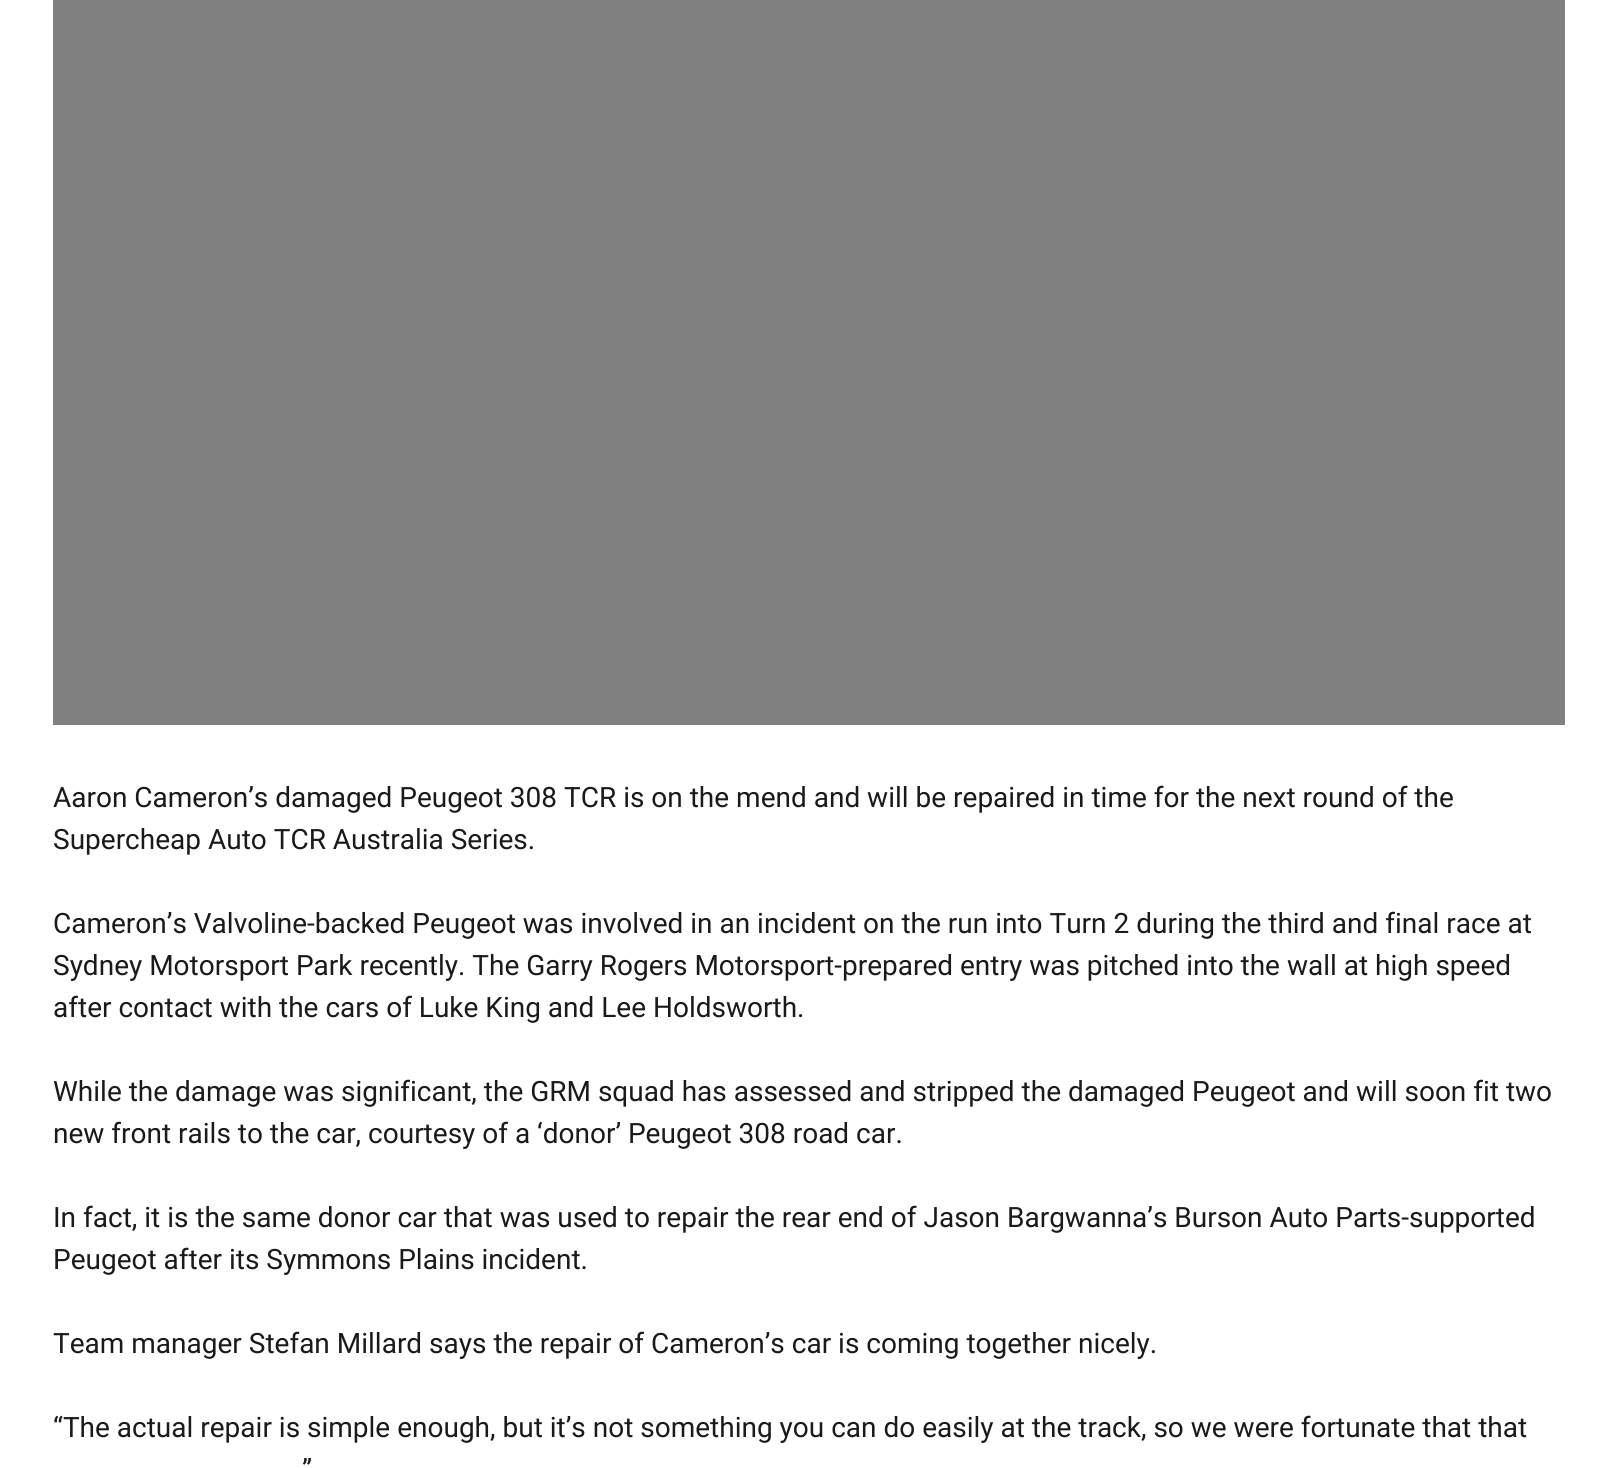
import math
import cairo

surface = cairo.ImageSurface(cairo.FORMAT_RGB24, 1617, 1468)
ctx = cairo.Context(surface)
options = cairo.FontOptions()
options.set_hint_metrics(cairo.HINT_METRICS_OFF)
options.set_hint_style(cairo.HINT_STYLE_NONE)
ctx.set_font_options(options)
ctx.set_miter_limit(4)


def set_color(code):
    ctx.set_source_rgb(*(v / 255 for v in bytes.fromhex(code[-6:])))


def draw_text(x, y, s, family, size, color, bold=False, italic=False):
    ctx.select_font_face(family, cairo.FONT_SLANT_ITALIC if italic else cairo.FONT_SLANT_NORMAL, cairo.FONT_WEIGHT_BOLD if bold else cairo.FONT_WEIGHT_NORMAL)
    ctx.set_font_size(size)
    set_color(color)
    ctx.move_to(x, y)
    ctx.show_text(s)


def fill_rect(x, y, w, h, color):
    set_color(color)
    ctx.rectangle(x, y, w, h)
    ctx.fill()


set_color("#ffffff")
ctx.paint()
fill_rect(53, 0, 1512, 725, "#808080")
draw_text(53, 807, "Aaron Cameron’s damaged Peugeot 308 TCR is on the mend and will be repaired in time for the next round of the", "Roboto", 28, "#1a1a1a")
draw_text(53, 849, "Supercheap Auto TCR Australia Series.", "Roboto", 28, "#1a1a1a")
draw_text(53, 933, "Cameron’s Valvoline-backed Peugeot was involved in an incident on the run into Turn 2 during the third and final race at", "Roboto", 28, "#1a1a1a")
draw_text(53, 975, "Sydney Motorsport Park recently. The Garry Rogers Motorsport-prepared entry was pitched into the wall at high speed", "Roboto", 28, "#1a1a1a")
draw_text(53, 1017, "after contact with the cars of Luke King and Lee Holdsworth.", "Roboto", 28, "#1a1a1a")
draw_text(53, 1101, "While the damage was significant, the GRM squad has assessed and stripped the damaged Peugeot and will soon fit two", "Roboto", 28, "#1a1a1a")
draw_text(53, 1143, "new front rails to the car, courtesy of a ‘donor’ Peugeot 308 road car.", "Roboto", 28, "#1a1a1a")
draw_text(53, 1227, "In fact, it is the same donor car that was used to repair the rear end of Jason Bargwanna’s Burson Auto Parts-supported", "Roboto", 28, "#1a1a1a")
draw_text(53, 1269, "Peugeot after its Symmons Plains incident.", "Roboto", 28, "#1a1a1a")
draw_text(53, 1353, "Team manager Stefan Millard says the repair of Cameron’s car is coming together nicely.", "Roboto", 28, "#1a1a1a")
draw_text(53, 1437, "“The actual repair is simple enough, but it’s not something you can do easily at the track, so we were fortunate that that", "Roboto", 28, "#1a1a1a")
draw_text(302, 1479, "”", "Roboto", 28, "#1a1a1a")
surface.write_to_png("output.png")
